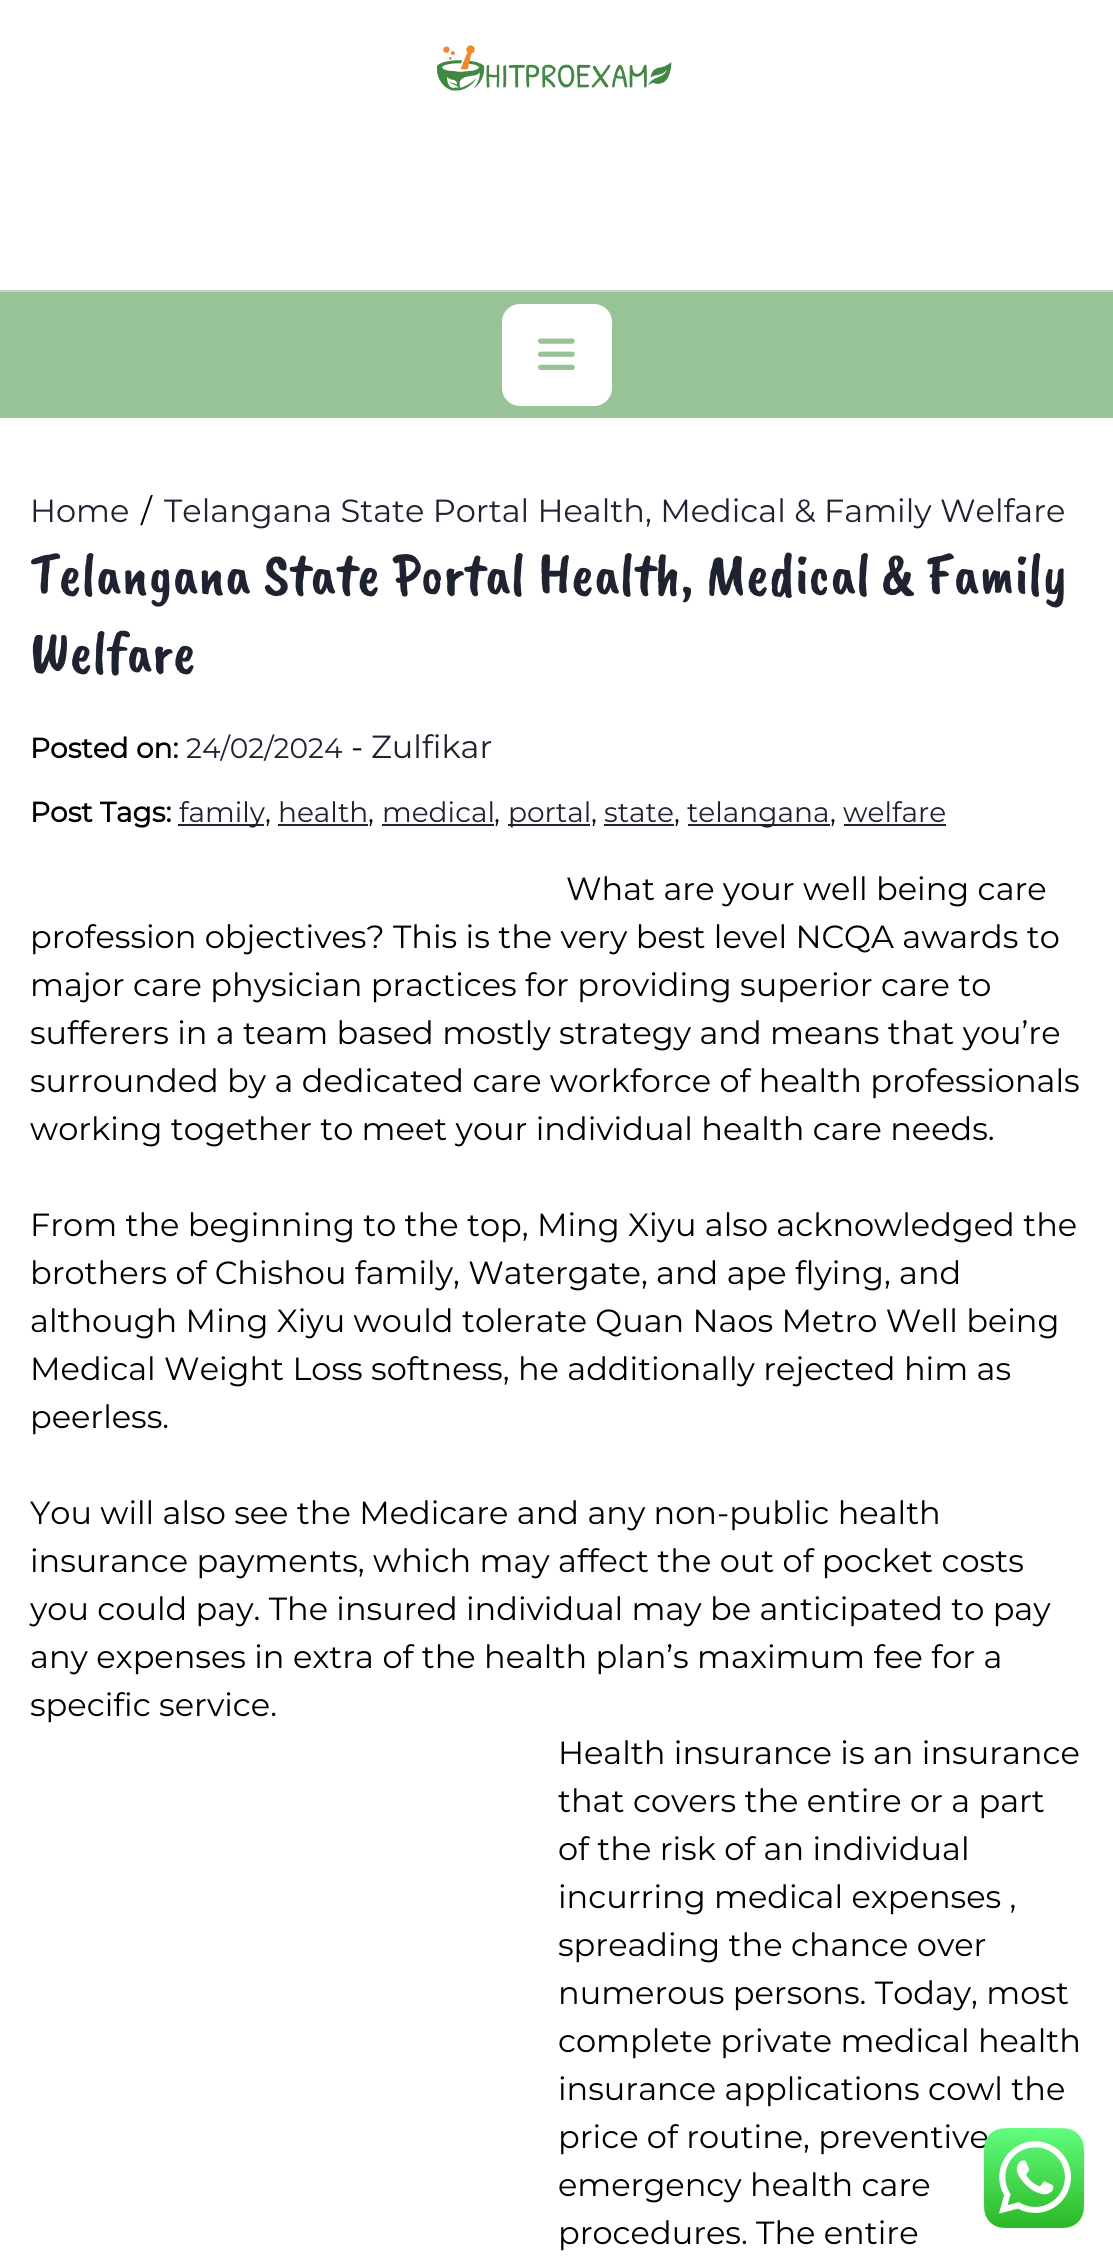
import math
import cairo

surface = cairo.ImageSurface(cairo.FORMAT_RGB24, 1113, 2258)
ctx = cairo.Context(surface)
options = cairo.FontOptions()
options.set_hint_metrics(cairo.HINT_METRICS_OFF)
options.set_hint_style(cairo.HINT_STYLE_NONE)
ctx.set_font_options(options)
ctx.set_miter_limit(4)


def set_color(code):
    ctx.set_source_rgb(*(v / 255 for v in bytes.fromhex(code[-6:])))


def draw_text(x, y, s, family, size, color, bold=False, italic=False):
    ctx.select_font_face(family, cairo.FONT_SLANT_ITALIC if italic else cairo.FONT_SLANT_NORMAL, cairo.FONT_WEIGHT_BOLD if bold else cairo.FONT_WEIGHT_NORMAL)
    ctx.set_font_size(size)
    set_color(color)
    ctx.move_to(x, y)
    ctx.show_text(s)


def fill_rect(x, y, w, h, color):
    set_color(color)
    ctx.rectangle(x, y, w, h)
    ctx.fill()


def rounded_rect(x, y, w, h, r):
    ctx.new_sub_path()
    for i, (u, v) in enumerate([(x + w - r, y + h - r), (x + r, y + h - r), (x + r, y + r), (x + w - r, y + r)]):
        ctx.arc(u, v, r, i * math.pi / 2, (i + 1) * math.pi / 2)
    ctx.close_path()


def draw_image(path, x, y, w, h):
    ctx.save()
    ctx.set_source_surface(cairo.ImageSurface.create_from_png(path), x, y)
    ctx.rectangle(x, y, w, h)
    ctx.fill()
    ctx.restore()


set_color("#ffffff")
ctx.paint()
fill_rect(0, 290, 1113, 2, "#cccccc")
draw_image("assets/img1.png", 437, 45, 235, 46)
fill_rect(0, 292, 1113, 126, "#98c397")
set_color("#ffffff")
rounded_rect(501, 303, 112, 104, 19)
ctx.fill_preserve()
set_color("#98c397")
ctx.stroke()
draw_image("assets/img2.png", 538, 338, 37, 32)
draw_text(30, 522, "Home", "Montserrat", 32, "#1f2230")
draw_text(141, 522, "/", "Montserrat", 32, "#000000")
draw_text(164, 522, "Telangana State Portal Health, Medical & Family Welfare", "Montserrat", 32, "#1f2230")
draw_text(30, 594, "Telangana State Portal Health, Medical & Family", "Caveat Brush", 60, "#1f2230")
draw_text(30, 672, "Welfare", "Caveat Brush", 60, "#1f2230")
draw_text(30, 758, "Posted on:", "Montserrat", 28, "#000000", bold=True)
draw_text(186, 758, "24/02/2024", "Montserrat", 28, "#1f2230")
draw_text(351, 758, "-", "Montserrat", 32, "#000000")
draw_text(371, 758, "Zulfikar", "Montserrat", 32, "#1f2230")
draw_text(30, 822, "Post Tags:", "Montserrat", 28, "#000000", bold=True)
fill_rect(178, 824, 86, 2, "#1f2230")
draw_text(179, 822, "family", "Montserrat", 28, "#1f2230")
draw_text(265, 822, ",", "Montserrat", 28, "#000000")
draw_text(278, 822, "health", "Montserrat", 28, "#1f2230")
fill_rect(278, 824, 90, 2, "#1f2230")
draw_text(368, 822, ",", "Montserrat", 28, "#000000")
draw_text(382, 822, "medical", "Montserrat", 28, "#1f2230")
fill_rect(382, 824, 112, 2, "#1f2230")
draw_text(494, 822, ",", "Montserrat", 28, "#000000")
fill_rect(508, 824, 82, 2, "#1f2230")
draw_text(508, 822, "portal", "Montserrat", 28, "#1f2230")
draw_text(591, 822, ",", "Montserrat", 28, "#000000")
draw_text(604, 822, "state", "Montserrat", 28, "#1f2230")
fill_rect(604, 824, 70, 2, "#1f2230")
draw_text(674, 822, ",", "Montserrat", 28, "#000000")
fill_rect(688, 824, 142, 2, "#1f2230")
draw_text(687, 822, "telangana", "Montserrat", 28, "#1f2230")
draw_text(830, 822, ",", "Montserrat", 28, "#000000")
draw_text(843, 822, "welfare", "Montserrat", 28, "#1f2230")
fill_rect(844, 824, 102, 2, "#1f2230")
draw_text(566, 900, "What are your well being care", "Montserrat", 32, "#000000")
draw_text(30, 948, "profession objectives? This is the very best level NCQA awards to", "Montserrat", 32, "#000000")
draw_text(30, 996, "major care physician practices for providing superior care to", "Montserrat", 32, "#000000")
draw_text(30, 1044, "sufferers in a team based mostly strategy and means that you’re", "Montserrat", 32, "#000000")
draw_text(30, 1092, "surrounded by a dedicated care workforce of health professionals", "Montserrat", 32, "#000000")
draw_text(30, 1140, "working together to meet your individual health care needs.", "Montserrat", 32, "#000000")
draw_text(30, 1236, "From the beginning to the top, Ming Xiyu also acknowledged the", "Montserrat", 32, "#000000")
draw_text(30, 1284, "brothers of Chishou family, Watergate, and ape flying, and", "Montserrat", 32, "#000000")
draw_text(30, 1332, "although Ming Xiyu would tolerate Quan Naos Metro Well being", "Montserrat", 32, "#000000")
draw_text(30, 1380, "Medical Weight Loss softness, he additionally rejected him as", "Montserrat", 32, "#000000")
draw_text(30, 1428, "peerless.", "Montserrat", 32, "#000000")
draw_text(30, 1524, "You will also see the Medicare and any non-public health", "Montserrat", 32, "#000000")
draw_text(30, 1572, "insurance payments, which may affect the out of pocket costs", "Montserrat", 32, "#000000")
draw_text(30, 1620, "you could pay. The insured individual may be anticipated to pay", "Montserrat", 32, "#000000")
draw_text(30, 1668, "any expenses in extra of the health plan’s maximum fee for a", "Montserrat", 32, "#000000")
draw_text(30, 1716, "specific service.", "Montserrat", 32, "#000000")
draw_text(558, 1764, "Health insurance is an insurance", "Montserrat", 32, "#000000")
draw_text(558, 1812, "that covers the entire or a part", "Montserrat", 32, "#000000")
draw_text(558, 1860, "of the risk of an individual", "Montserrat", 32, "#000000")
draw_text(558, 1908, "incurring medical expenses ,", "Montserrat", 32, "#000000")
draw_text(558, 1956, "spreading the chance over", "Montserrat", 32, "#000000")
draw_text(558, 2004, "numerous persons. Today, most", "Montserrat", 32, "#000000")
draw_text(558, 2052, "complete private medical health", "Montserrat", 32, "#000000")
draw_text(558, 2100, "insurance applications cowl the", "Montserrat", 32, "#000000")
draw_text(558, 2148, "price of routine, preventive", "Montserrat", 32, "#000000")
draw_text(558, 2196, "emergency health care", "Montserrat", 32, "#000000")
draw_text(558, 2244, "procedures. The entire", "Montserrat", 32, "#000000")
draw_image("assets/img3.png", 984, 2128, 100, 100)
surface.write_to_png("output.png")
